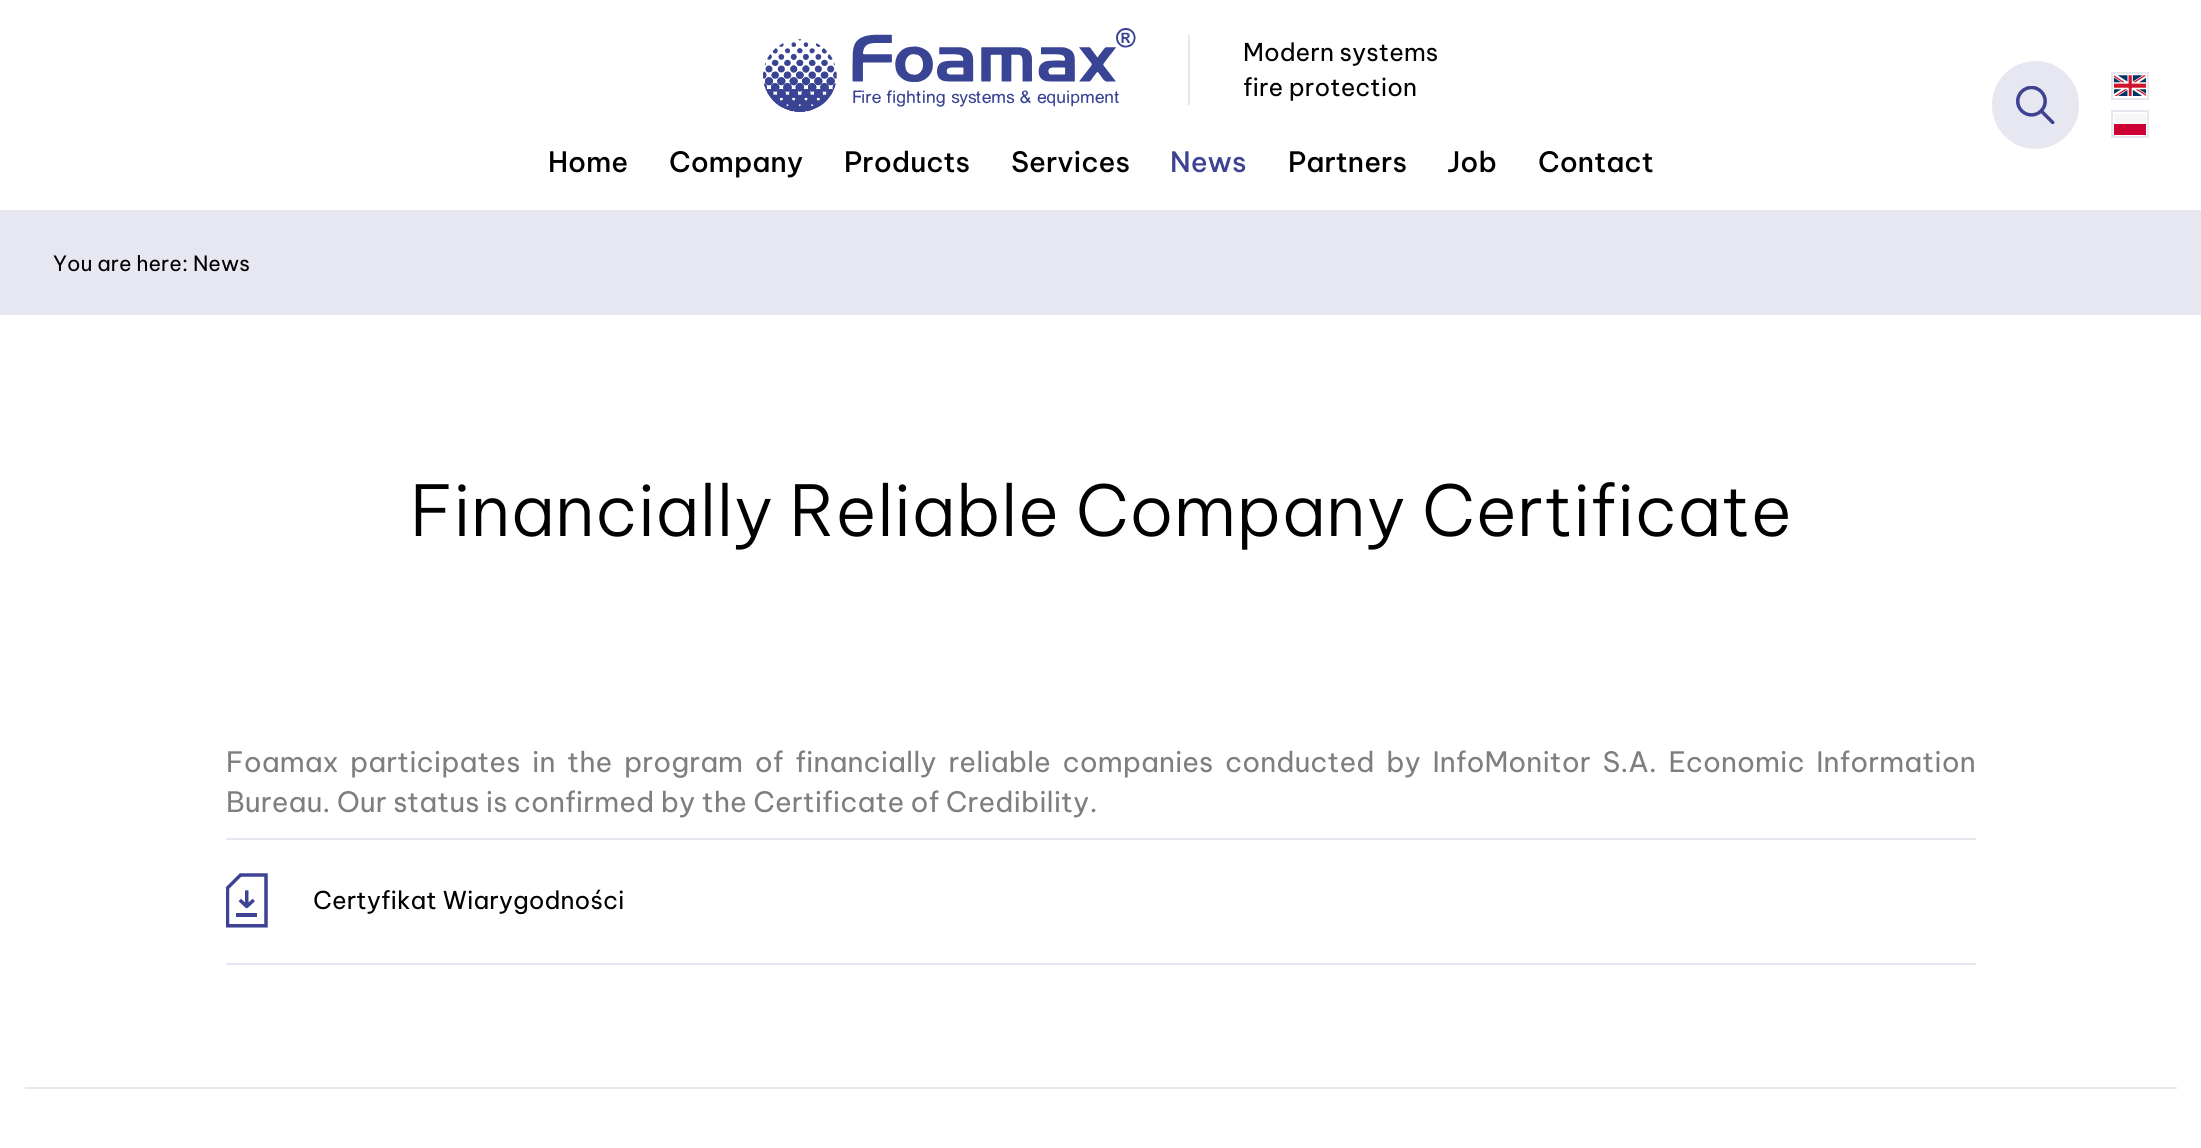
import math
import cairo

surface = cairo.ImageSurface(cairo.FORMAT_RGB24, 2201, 1148)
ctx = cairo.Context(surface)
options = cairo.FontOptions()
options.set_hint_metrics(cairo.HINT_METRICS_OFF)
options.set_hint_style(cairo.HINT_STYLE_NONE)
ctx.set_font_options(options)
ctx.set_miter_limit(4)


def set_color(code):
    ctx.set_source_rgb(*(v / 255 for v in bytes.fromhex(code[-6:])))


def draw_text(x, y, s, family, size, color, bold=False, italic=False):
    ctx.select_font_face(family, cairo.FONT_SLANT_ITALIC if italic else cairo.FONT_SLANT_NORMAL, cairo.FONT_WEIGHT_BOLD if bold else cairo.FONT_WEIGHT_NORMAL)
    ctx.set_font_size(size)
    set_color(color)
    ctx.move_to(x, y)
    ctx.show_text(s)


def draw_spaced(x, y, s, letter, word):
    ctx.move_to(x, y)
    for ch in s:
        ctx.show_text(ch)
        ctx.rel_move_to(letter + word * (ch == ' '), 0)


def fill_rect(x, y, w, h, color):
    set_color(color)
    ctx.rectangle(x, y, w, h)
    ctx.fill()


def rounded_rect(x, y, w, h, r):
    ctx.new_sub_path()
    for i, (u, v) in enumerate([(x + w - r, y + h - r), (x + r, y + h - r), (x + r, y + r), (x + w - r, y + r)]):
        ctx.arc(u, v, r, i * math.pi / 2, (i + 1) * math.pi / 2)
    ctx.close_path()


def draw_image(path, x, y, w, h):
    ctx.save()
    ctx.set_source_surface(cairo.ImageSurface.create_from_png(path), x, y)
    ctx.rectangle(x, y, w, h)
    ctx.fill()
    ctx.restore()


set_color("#ffffff")
ctx.paint()
draw_image("assets/img1.png", 763, 28, 373, 84)
fill_rect(1188, 35, 2, 70, "#e7e7f1")
draw_text(1243, 61, "Modern systems", "Be Vietnam Pro", 24.5, "#000000")
draw_text(1243, 96, "fire protection", "Be Vietnam Pro", 24.5, "#000000")
set_color("#e7e7f1")
rounded_rect(1992, 61, 87, 88, 43.5)
ctx.fill()
draw_image("assets/img2.png", 2016, 86, 39, 38)
draw_image("assets/img3.png", 2114, 75, 32, 21)
ctx.rectangle(2112, 73, 36, 26)
ctx.stroke()
fill_rect(2114, 124, 32, 11, "#cc0033")
fill_rect(2114, 114, 32, 10, "#f6f6f6")
ctx.rectangle(2112, 111, 36, 26)
set_color("#e7e7f1")
ctx.stroke()
draw_text(548, 172, "Home", "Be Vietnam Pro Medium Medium", 28, "#000000")
draw_text(669, 172, "Company", "Be Vietnam Pro Medium Medium", 28, "#000000")
draw_text(844, 172, "Products", "Be Vietnam Pro Medium Medium", 28, "#000000")
draw_text(1011, 172, "Services", "Be Vietnam Pro Medium Medium", 28, "#000000")
draw_text(1170, 172, "News", "Be Vietnam Pro Medium Medium", 28, "#3d4293")
draw_text(1288, 172, "Partners", "Be Vietnam Pro Medium Medium", 28, "#000000")
draw_text(1447, 172, "Job", "Be Vietnam Pro Medium Medium", 28, "#000000")
draw_text(1538, 172, "Contact", "Be Vietnam Pro Medium Medium", 28, "#000000")
fill_rect(0, 210, 2201, 105, "#e7e7f1")
draw_text(53, 271, "You are here:", "Be Vietnam Pro", 21, "#000000")
draw_text(193, 271, "News", "Be Vietnam Pro", 21, "#000000")
draw_text(410, 536, "Financially Reliable Company Certificate", "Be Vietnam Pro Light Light", 70, "#000000")
ctx.select_font_face("Be Vietnam Pro")
ctx.set_font_size(28)
set_color("#7e7e7e")
draw_spaced(226, 772, "Foamax participates in the program of financially reliable companies conducted by InfoMonitor S.A. Economic Information", 0, 5.25)
draw_text(226, 812, "Bureau. Our status is confirmed by the Certificate of Credibility.", "Be Vietnam Pro", 28, "#7e7e7e")
draw_image("assets/img4.png", 226, 873, 42, 55)
fill_rect(226, 838, 1750, 2, "#e7e7f1")
fill_rect(226, 963, 1750, 2, "#e7e7f1")
draw_text(313, 909, "Certyfikat Wiarygodności", "Be Vietnam Pro", 24.5, "#000000")
fill_rect(25, 1087, 2152, 2, "#e7e7f1")
surface.write_to_png("output.png")
